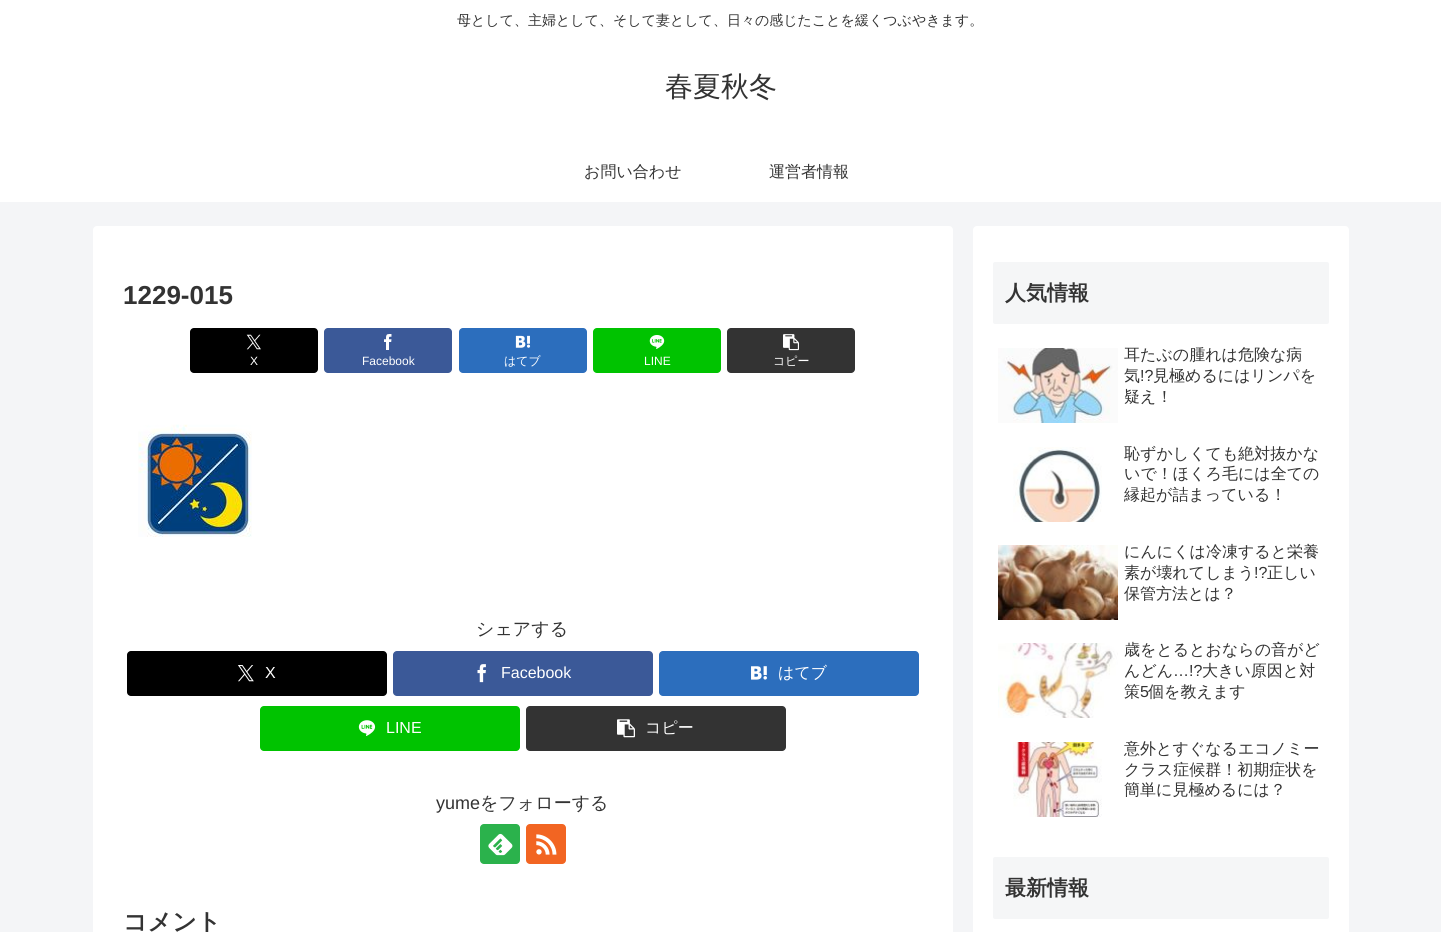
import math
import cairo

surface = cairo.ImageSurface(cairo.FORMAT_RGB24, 1441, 932)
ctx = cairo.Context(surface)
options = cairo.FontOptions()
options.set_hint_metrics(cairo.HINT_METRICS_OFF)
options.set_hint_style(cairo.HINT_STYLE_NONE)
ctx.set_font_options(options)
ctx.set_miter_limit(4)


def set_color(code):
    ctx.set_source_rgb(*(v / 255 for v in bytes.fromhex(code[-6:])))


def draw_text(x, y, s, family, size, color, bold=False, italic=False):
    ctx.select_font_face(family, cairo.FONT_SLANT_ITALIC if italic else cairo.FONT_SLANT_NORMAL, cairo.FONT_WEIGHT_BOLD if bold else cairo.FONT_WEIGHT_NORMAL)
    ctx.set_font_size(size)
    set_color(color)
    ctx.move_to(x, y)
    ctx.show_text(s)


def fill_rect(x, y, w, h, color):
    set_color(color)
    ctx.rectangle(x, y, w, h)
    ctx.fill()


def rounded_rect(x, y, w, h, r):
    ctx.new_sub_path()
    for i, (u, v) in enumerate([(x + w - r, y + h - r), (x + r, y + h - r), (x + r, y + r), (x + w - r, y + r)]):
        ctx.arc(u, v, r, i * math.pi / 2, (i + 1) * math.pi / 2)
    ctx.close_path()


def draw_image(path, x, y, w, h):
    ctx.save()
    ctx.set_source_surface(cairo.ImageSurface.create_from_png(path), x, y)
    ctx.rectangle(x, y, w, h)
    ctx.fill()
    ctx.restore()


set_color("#f4f5f7")
ctx.paint()
fill_rect(0, 0, 1441, 202, "#ffffff")
draw_text(457, 25, "母として、主婦として、そして妻として、日々の感じたことを緩くつぶやきます。", "WenQuanYi Zen Hei Medium", 14, "#333333")
draw_text(665, 96, "春夏秋冬", "WenQuanYi Zen Hei Medium", 28, "#333333")
draw_text(584, 177, "お問い合わせ", "WenQuanYi Zen Hei Medium", 16, "#333333")
draw_text(769, 177, "運営者情報", "WenQuanYi Zen Hei Medium", 16, "#333333")
set_color("#ffffff")
rounded_rect(93, 226, 860, 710, 4)
ctx.fill()
draw_text(123, 304, "1229-015", "Liberation Sans", 26, "#333333", bold=True)
set_color("#000000")
rounded_rect(190, 328, 128, 45, 4)
ctx.fill()
draw_image("assets/img1.png", 246, 334, 15, 16)
draw_text(250, 365, "X", "Liberation Sans", 12, "#ffffff")
set_color("#3b5998")
rounded_rect(324, 328, 128, 45, 4)
ctx.fill()
draw_image("assets/img2.png", 384, 334, 8, 16)
draw_text(362, 365, "Facebook", "Liberation Sans", 12, "#ffffff")
set_color("#2c6ebd")
rounded_rect(459, 328, 128, 45, 4)
ctx.fill()
draw_image("assets/img3.png", 515, 335, 16, 13)
draw_text(504, 365, "はてブ", "WenQuanYi Zen Hei Medium", 12, "#ffffff")
set_color("#00c300")
rounded_rect(593, 328, 128, 45, 4)
ctx.fill()
draw_image("assets/img4.png", 649, 335, 16, 14)
draw_text(644, 365, "LINE", "Liberation Sans", 12, "#ffffff")
set_color("#333333")
rounded_rect(727, 328, 128, 45, 4)
ctx.fill()
draw_image("assets/img5.png", 783, 334, 16, 17)
draw_text(773, 365, "コピー", "WenQuanYi Zen Hei Medium", 12, "#ffffff")
draw_image("assets/img6.png", 138, 424, 114, 113)
draw_text(476, 635, "シェアする", "WenQuanYi Zen Hei Medium", 18, "#333333")
set_color("#000000")
rounded_rect(127, 651, 260, 45, 4)
ctx.fill()
draw_image("assets/img7.png", 238, 665, 16, 17)
draw_text(265, 678, "X", "Liberation Sans", 16, "#ffffff")
set_color("#3b5998")
rounded_rect(393, 651, 260, 45, 4)
ctx.fill()
draw_image("assets/img8.png", 477, 664, 9, 19)
draw_text(501, 678, "Facebook", "Liberation Sans", 16, "#ffffff")
set_color("#2c6ebd")
rounded_rect(659, 651, 260, 45, 4)
ctx.fill()
draw_image("assets/img9.png", 751, 666, 16, 14)
draw_text(778, 678, "はてブ", "WenQuanYi Zen Hei Medium", 16, "#ffffff")
set_color("#00c300")
rounded_rect(260, 706, 260, 45, 4)
ctx.fill()
draw_image("assets/img10.png", 358, 720, 18, 16)
draw_text(386, 733, "LINE", "Liberation Sans", 16, "#ffffff")
set_color("#333333")
rounded_rect(526, 706, 260, 45, 4)
ctx.fill()
draw_image("assets/img11.png", 617, 719, 18, 19)
draw_text(645, 733, "コピー", "WenQuanYi Zen Hei Medium", 16, "#ffffff")
draw_text(436, 809, "yume", "Liberation Sans", 18, "#333333")
draw_text(480, 809, "をフォローする", "WenQuanYi Zen Hei Medium", 18, "#333333")
set_color("#2bb24c")
rounded_rect(480, 824, 40, 40, 4)
ctx.fill()
draw_image("assets/img12.png", 488, 833, 25, 23)
set_color("#f26522")
rounded_rect(526, 824, 40, 40, 4)
ctx.fill()
draw_image("assets/img13.png", 536, 834, 21, 21)
draw_text(123, 930, "コメント", "WenQuanYi Zen Hei", 24, "#333333", bold=True)
set_color("#ffffff")
rounded_rect(973, 226, 376, 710, 4)
ctx.fill()
set_color("#f5f6f7")
rounded_rect(993, 262, 336, 62, 2)
ctx.fill()
draw_text(1005, 300, "人気情報", "WenQuanYi Zen Hei", 21, "#333333", bold=True)
draw_image("assets/img14.png", 998, 348, 120, 75)
draw_text(1124, 360, "耳たぶの腫れは危険な病", "WenQuanYi Zen Hei Medium", 16, "#333333")
draw_text(1124, 381, "気", "WenQuanYi Zen Hei Medium", 16, "#333333")
draw_text(1140, 381, "!?", "Liberation Sans", 16, "#333333")
draw_text(1153, 381, "見極めるにはリンパを", "WenQuanYi Zen Hei Medium", 16, "#333333")
draw_text(1124, 402, "疑え！", "WenQuanYi Zen Hei Medium", 16, "#333333")
draw_image("assets/img15.png", 1013, 447, 89, 75)
draw_text(1124, 459, "恥ずかしくても絶対抜かな", "WenQuanYi Zen Hei Medium", 16, "#333333")
draw_text(1124, 479, "いで！ほくろ毛には全ての", "WenQuanYi Zen Hei Medium", 16, "#333333")
ctx.save()
ctx.rectangle(1124, 444, 200, 62)
ctx.clip()
draw_text(1124, 500, "縁起が詰まっている！", "WenQuanYi Zen Hei Medium", 16, "#333333")
ctx.restore()
draw_image("assets/img16.png", 998, 545, 120, 75)
draw_text(1124, 557, "にんにくは冷凍すると栄養", "WenQuanYi Zen Hei Medium", 16, "#333333")
draw_text(1124, 578, "素が壊れてしまう", "WenQuanYi Zen Hei Medium", 16, "#333333")
draw_text(1254, 578, "!?", "Liberation Sans", 16, "#333333")
draw_text(1267, 578, "正しい", "WenQuanYi Zen Hei Medium", 16, "#333333")
draw_text(1124, 599, "保管方法とは？", "WenQuanYi Zen Hei Medium", 16, "#333333")
draw_image("assets/img17.png", 998, 643, 120, 75)
draw_text(1124, 655, "歳をとるとおならの音がど", "WenQuanYi Zen Hei Medium", 16, "#333333")
draw_text(1124, 676, "んどん", "WenQuanYi Zen Hei Medium", 16, "#333333")
draw_text(1173, 676, "…!?", "Liberation Sans", 16, "#333333")
draw_text(1202, 676, "大きい原因と対", "WenQuanYi Zen Hei Medium", 16, "#333333")
draw_text(1124, 697, "策", "WenQuanYi Zen Hei Medium", 16, "#333333")
draw_text(1140, 697, "5", "Liberation Sans", 16, "#333333")
draw_text(1148, 697, "個を教えます", "WenQuanYi Zen Hei Medium", 16, "#333333")
draw_image("assets/img18.png", 1013, 742, 89, 75)
draw_text(1124, 754, "意外とすぐなるエコノミー", "WenQuanYi Zen Hei Medium", 16, "#333333")
draw_text(1124, 775, "クラス症候群！初期症状を", "WenQuanYi Zen Hei Medium", 16, "#333333")
draw_text(1124, 795, "簡単に見極めるには？", "WenQuanYi Zen Hei Medium", 16, "#333333")
set_color("#f5f6f7")
rounded_rect(993, 857, 336, 62, 2)
ctx.fill()
draw_text(1005, 895, "最新情報", "WenQuanYi Zen Hei", 21, "#333333", bold=True)
surface.write_to_png("output.png")
